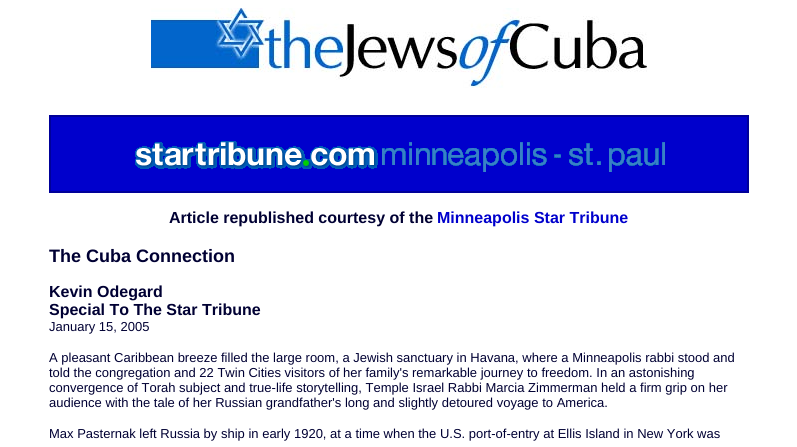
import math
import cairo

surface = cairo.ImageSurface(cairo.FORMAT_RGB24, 797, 447)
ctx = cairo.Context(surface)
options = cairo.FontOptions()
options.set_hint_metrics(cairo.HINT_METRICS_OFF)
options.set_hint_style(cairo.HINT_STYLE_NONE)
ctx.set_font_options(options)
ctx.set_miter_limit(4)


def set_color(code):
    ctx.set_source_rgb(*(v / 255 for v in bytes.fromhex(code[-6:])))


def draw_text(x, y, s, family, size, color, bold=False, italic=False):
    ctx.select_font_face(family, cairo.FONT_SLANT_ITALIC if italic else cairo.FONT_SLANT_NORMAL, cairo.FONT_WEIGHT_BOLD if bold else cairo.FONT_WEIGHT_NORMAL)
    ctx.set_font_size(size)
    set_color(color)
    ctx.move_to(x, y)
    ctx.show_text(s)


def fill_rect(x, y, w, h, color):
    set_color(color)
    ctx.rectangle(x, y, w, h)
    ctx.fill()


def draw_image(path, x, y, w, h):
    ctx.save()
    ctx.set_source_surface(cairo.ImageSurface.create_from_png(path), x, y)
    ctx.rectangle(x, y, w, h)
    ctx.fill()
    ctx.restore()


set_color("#ffffff")
ctx.paint()
draw_image("assets/img1.png", 151, 8, 496, 80)
fill_rect(49, 115, 700, 78, "#000099")
fill_rect(51, 117, 696, 74, "#0000cc")
draw_image("assets/img2.png", 135, 141, 530, 31)
draw_text(169, 223, "Article republished courtesy of the", "Liberation Sans", 16, "#000033", bold=True)
draw_text(437, 223, "Minneapolis Star Tribune", "Liberation Sans", 16, "#0000cc", bold=True)
draw_text(49, 262, "The Cuba Connection", "Liberation Sans", 18, "#000033", bold=True)
draw_text(49, 297, "Kevin Odegard", "Liberation Sans", 16, "#000033", bold=True)
draw_text(49, 315, "Special To The Star Tribune", "Liberation Sans", 16, "#000033", bold=True)
draw_text(49, 331, "January 15, 2005", "Liberation Sans", 13, "#000033")
draw_text(49, 362, "A pleasant Caribbean breeze filled the large room, a Jewish sanctuary in Havana, where a Minneapolis rabbi stood and", "Liberation Sans", 13, "#000033")
draw_text(49, 377, "told the congregation and 22 Twin Cities visitors of her family's remarkable journey to freedom. In an astonishing", "Liberation Sans", 13, "#000033")
draw_text(49, 392, "convergence of Torah subject and true-life storytelling, Temple Israel Rabbi Marcia Zimmerman held a firm grip on her", "Liberation Sans", 13, "#000033")
draw_text(49, 407, "audience with the tale of her Russian grandfather's long and slightly detoured voyage to America.", "Liberation Sans", 13, "#000033")
draw_text(49, 438, "Max Pasternak left Russia by ship in early 1920, at a time when the U.S. port-of-entry at Ellis Island in New York was", "Liberation Sans", 13, "#000033")
surface.write_to_png("output.png")
